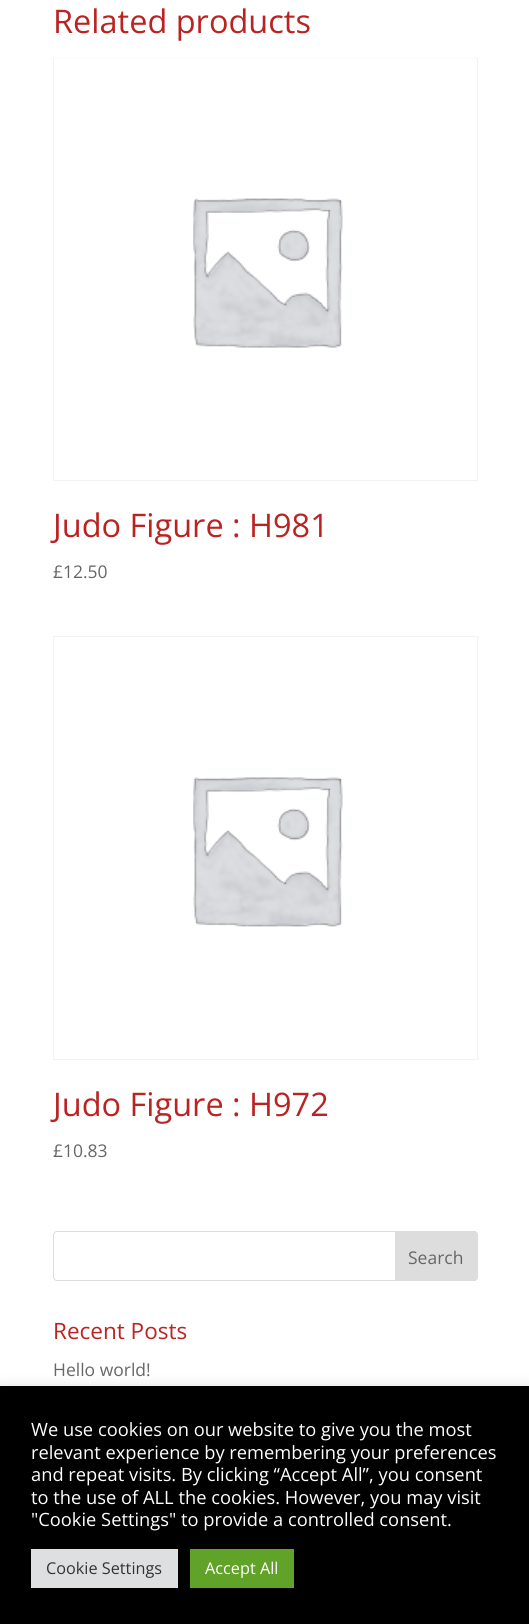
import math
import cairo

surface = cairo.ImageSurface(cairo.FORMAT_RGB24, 529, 1624)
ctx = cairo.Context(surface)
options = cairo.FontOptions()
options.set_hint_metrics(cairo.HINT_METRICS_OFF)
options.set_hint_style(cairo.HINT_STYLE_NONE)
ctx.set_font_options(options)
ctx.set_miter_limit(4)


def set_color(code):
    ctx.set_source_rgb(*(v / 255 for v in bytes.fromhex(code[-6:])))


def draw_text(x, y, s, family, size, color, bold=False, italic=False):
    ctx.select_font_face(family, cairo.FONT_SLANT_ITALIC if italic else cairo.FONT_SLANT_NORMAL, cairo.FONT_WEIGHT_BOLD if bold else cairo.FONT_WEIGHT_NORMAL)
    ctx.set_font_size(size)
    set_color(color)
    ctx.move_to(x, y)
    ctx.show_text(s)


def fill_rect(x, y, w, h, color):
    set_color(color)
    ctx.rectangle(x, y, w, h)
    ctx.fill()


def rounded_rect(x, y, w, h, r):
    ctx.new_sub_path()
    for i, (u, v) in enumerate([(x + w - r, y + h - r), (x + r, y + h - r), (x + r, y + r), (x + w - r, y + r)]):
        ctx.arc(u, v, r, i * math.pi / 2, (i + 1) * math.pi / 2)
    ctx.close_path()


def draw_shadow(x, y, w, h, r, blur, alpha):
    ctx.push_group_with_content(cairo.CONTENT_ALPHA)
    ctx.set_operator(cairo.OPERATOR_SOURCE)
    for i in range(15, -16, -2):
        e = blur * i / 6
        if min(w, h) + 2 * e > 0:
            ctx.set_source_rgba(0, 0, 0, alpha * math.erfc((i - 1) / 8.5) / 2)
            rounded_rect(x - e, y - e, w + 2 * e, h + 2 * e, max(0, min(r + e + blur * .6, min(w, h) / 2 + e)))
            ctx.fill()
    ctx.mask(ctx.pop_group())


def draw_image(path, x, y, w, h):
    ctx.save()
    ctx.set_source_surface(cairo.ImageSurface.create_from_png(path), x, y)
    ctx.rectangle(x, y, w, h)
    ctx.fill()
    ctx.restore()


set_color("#ffffff")
ctx.paint()
draw_text(53, 33, "Related products", "Open Sans", 32.5, "#bb2322")
ctx.rectangle(53.5, 58.5, 424, 422)
set_color("#f2f2f2")
ctx.set_line_width(1)
ctx.stroke()
draw_image("assets/img1.png", 54, 58, 422, 290)
draw_text(53, 537, "Judo Figure : H981", "Open Sans", 32.5, "#bb2322")
draw_text(53, 578, "£12.50", "Open Sans", 17.5, "#666666")
ctx.rectangle(53.5, 636.5, 424, 423)
set_color("#f2f2f2")
ctx.stroke()
draw_image("assets/img2.png", 193, 777, 150, 150)
draw_text(53, 1116, "Judo Figure : H972", "Open Sans", 32.5, "#bb2322")
draw_text(53, 1157, "£10.83", "Open Sans", 17.5, "#666666")
rounded_rect(53.5, 1231.5, 424, 49, 3.5)
set_color("#dddddd")
ctx.stroke()
ctx.new_path()
ctx.move_to(395.5, 1231.5)
ctx.line_to(474, 1231.5)
ctx.curve_to(476, 1231.5, 477.5, 1233, 477.5, 1235)
ctx.line_to(477.5, 1277)
ctx.curve_to(477.5, 1279, 476, 1280.5, 474, 1280.5)
ctx.line_to(395.5, 1280.5)
ctx.close_path()
ctx.fill_preserve()
ctx.stroke()
draw_text(408, 1264, "Search", "Open Sans", 17.5, "#666666")
draw_text(53, 1339, "Recent Posts", "Open Sans", 22.5, "#bb2322")
draw_text(53, 1376, "Hello world!", "Open Sans", 17.5, "#666666")
set_color("#acabab")
draw_shadow(0, 1385, 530, 239, 0, 6, 0.3)
fill_rect(0, 1386, 529, 238, "#000000")
draw_text(31, 1436, "We use cookies on our website to give you the most", "Open Sans", 18.3, "#ffffff")
draw_text(31, 1459, "relevant experience by remembering your preferences", "Open Sans", 18.3, "#ffffff")
draw_text(31, 1481, "and repeat visits. By clicking “Accept All”, you consent", "Open Sans", 18.3, "#ffffff")
draw_text(31, 1504, "to the use of ALL the cookies. However, you may visit", "Open Sans", 18.3, "#ffffff")
draw_text(31, 1526, "\"Cookie Settings\" to provide a controlled consent.", "Open Sans", 18.3, "#ffffff")
fill_rect(31, 1549, 147, 39, "#dedfe0")
draw_text(46, 1574, "Cookie Settings", "Open Sans", 16.25, "#333333")
fill_rect(190, 1549, 104, 39, "#61a229")
draw_text(205, 1574, "Accept All", "Open Sans", 16.25, "#ffffff")
surface.write_to_png("output.png")
